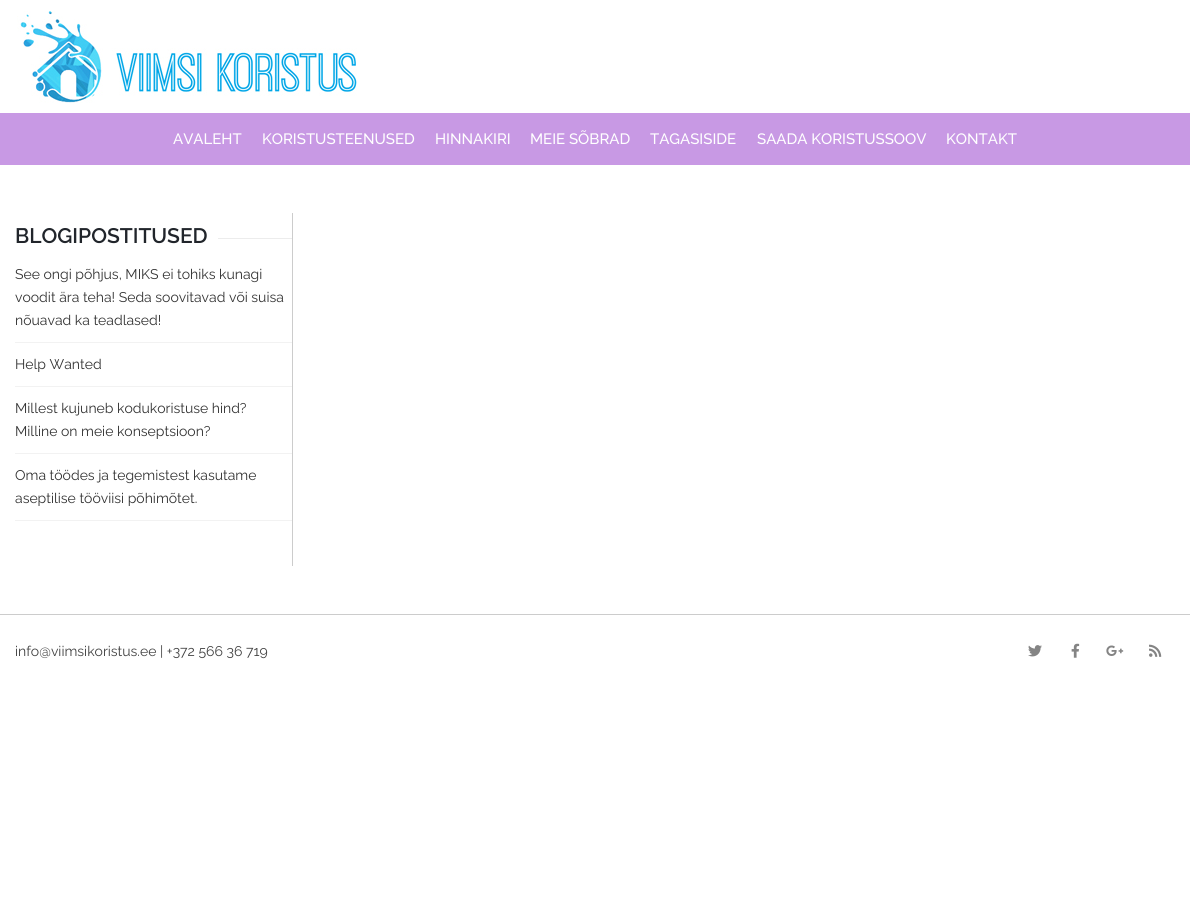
import math
import cairo

surface = cairo.ImageSurface(cairo.FORMAT_RGB24, 1190, 904)
ctx = cairo.Context(surface)
options = cairo.FontOptions()
options.set_hint_metrics(cairo.HINT_METRICS_OFF)
options.set_hint_style(cairo.HINT_STYLE_NONE)
ctx.set_font_options(options)
ctx.set_miter_limit(4)


def set_color(code):
    ctx.set_source_rgb(*(v / 255 for v in bytes.fromhex(code[-6:])))


def draw_text(x, y, s, family, size, color, bold=False, italic=False):
    ctx.select_font_face(family, cairo.FONT_SLANT_ITALIC if italic else cairo.FONT_SLANT_NORMAL, cairo.FONT_WEIGHT_BOLD if bold else cairo.FONT_WEIGHT_NORMAL)
    ctx.set_font_size(size)
    set_color(color)
    ctx.move_to(x, y)
    ctx.show_text(s)


def fill_rect(x, y, w, h, color):
    set_color(color)
    ctx.rectangle(x, y, w, h)
    ctx.fill()


def draw_image(path, x, y, w, h):
    ctx.save()
    ctx.set_source_surface(cairo.ImageSurface.create_from_png(path), x, y)
    ctx.rectangle(x, y, w, h)
    ctx.fill()
    ctx.restore()


set_color("#ffffff")
ctx.paint()
draw_image("assets/img1.png", 17, 11, 340, 92)
fill_rect(0, 113, 1190, 52, "#c899e4")
draw_text(173, 144, "AVALEHT", "Raleway Medium", 15, "#ffffff")
draw_text(262, 144, "KORISTUSTEENUSED", "Raleway Medium", 15, "#ffffff")
draw_text(435, 144, "HINNAKIRI", "Raleway Medium", 15, "#ffffff")
draw_text(530, 144, "MEIE SÕBRAD", "Raleway Medium", 15, "#ffffff")
draw_text(650, 144, "TAGASISIDE", "Raleway Medium", 15, "#ffffff")
draw_text(757, 144, "SAADA KORISTUSSOOV", "Raleway Medium", 15, "#ffffff")
draw_text(946, 144, "KONTAKT", "Raleway Medium", 15, "#ffffff")
fill_rect(292, 213, 1, 353, "#cccccc")
draw_text(15, 243, "BLOGIPOSTITUSED", "Raleway SemiBold", 21, "#21252b")
fill_rect(218, 238, 74, 1, "#ececec")
fill_rect(15, 342, 277, 1, "#f2f2f2")
draw_text(15, 279, "See ongi põhjus, MIKS ei tohiks kunagi", "Raleway", 14, "#333333")
draw_text(15, 302, "voodit ära teha! Seda soovitavad või suisa", "Raleway", 14, "#333333")
draw_text(15, 325, "nõuavad ka teadlased!", "Raleway", 14, "#333333")
fill_rect(15, 386, 277, 1, "#f2f2f2")
draw_text(15, 369, "Help Wanted", "Raleway", 14, "#333333")
fill_rect(15, 453, 277, 1, "#f2f2f2")
draw_text(15, 413, "Millest kujuneb kodukoristuse hind?", "Raleway", 14, "#333333")
draw_text(15, 436, "Milline on meie konseptsioon?", "Raleway", 14, "#333333")
fill_rect(15, 520, 277, 1, "#f2f2f2")
draw_text(15, 480, "Oma töödes ja tegemistest kasutame", "Raleway", 14, "#333333")
draw_text(15, 503, "aseptilise tööviisi põhimõtet.", "Raleway", 14, "#333333")
fill_rect(0, 614, 1190, 1, "#cccccc")
draw_text(15, 656, "info@viimsikoristus.ee | +372 566 36 719", "Raleway", 14, "#424242")
draw_image("assets/img2.png", 1028, 645, 14, 12)
draw_image("assets/img3.png", 1071, 643, 9, 15)
draw_image("assets/img4.png", 1106, 645, 18, 11)
draw_image("assets/img5.png", 1149, 644, 13, 13)
surface.write_to_png("output.png")
